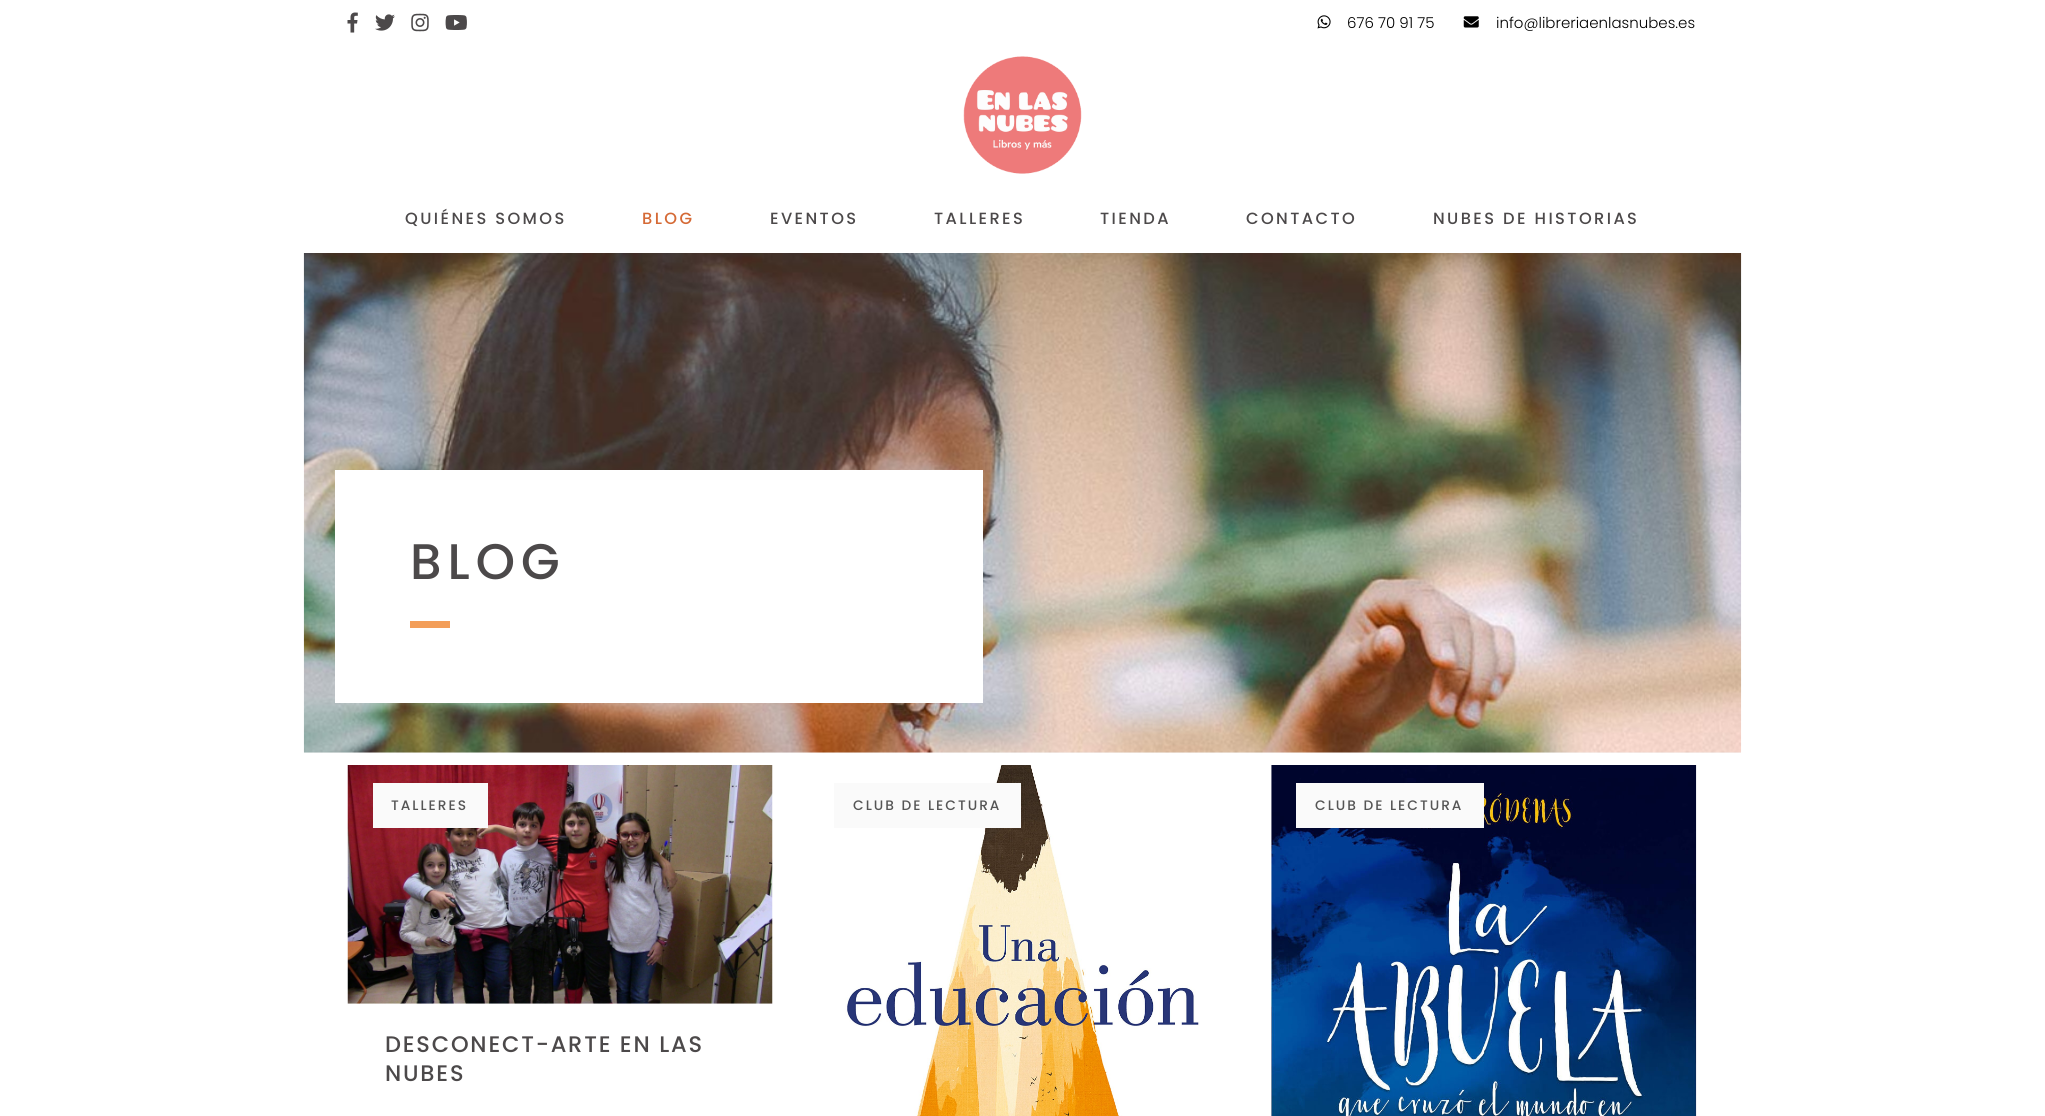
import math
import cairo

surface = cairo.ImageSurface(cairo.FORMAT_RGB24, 2045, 1116)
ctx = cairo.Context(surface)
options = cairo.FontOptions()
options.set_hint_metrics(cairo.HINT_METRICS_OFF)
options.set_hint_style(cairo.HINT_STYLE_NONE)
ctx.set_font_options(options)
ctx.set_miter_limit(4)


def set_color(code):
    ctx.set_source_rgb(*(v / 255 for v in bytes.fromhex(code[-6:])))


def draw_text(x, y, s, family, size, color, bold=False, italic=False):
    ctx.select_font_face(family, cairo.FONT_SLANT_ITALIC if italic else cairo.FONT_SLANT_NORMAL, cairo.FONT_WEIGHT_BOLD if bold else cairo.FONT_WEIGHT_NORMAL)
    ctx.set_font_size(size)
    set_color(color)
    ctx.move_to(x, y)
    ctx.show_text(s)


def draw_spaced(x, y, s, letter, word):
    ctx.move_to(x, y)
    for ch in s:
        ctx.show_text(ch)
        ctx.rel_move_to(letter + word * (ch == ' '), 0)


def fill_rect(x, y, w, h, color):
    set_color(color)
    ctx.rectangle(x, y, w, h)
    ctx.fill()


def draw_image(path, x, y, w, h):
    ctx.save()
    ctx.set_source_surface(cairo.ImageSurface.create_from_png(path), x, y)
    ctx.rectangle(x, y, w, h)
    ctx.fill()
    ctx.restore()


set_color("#ffffff")
ctx.paint()
draw_image("assets/img1.png", 347, 12, 11, 21)
draw_image("assets/img2.png", 375, 14, 20, 17)
draw_image("assets/img3.png", 411, 13, 18, 19)
draw_image("assets/img4.png", 445, 15, 22, 15)
draw_image("assets/img5.png", 1317, 15, 14, 14)
draw_text(1347, 28, "676 70 91 75", "Poppins Light", 15, "#000000")
draw_image("assets/img6.png", 1463, 16, 16, 12)
draw_text(1496, 28, "info@libreriaenlasnubes.es", "Poppins Light", 15, "#000000")
draw_image("assets/img7.png", 963, 56, 119, 118)
ctx.select_font_face("Poppins Medium")
ctx.set_font_size(16.25)
set_color("#4c494a")
draw_spaced(405, 224, "QUIÉNES SOMOS", 2.4, 0)
set_color("#d56a36")
draw_spaced(642, 224, "BLOG", 2.4, 0)
set_color("#4c494a")
draw_spaced(770, 224, "EVENTOS", 2.4, 0)
draw_spaced(934, 224, "TALLERES", 2.4, 0)
draw_spaced(1100, 224, "TIENDA", 2.4, 0)
draw_spaced(1246, 224, "CONTACTO", 2.4, 0)
draw_spaced(1433, 224, "NUBES DE HISTORIAS", 2.4, 0)
fill_rect(304, 752, 1437, 1, "#f6f6f6")
draw_image("assets/img8.png", 303, 253, 1439, 500)
fill_rect(335, 470, 648, 233, "#ffffff")
ctx.set_font_size(50)
set_color("#4c494a")
draw_spaced(410, 579, "BLOG", 6, 0)
fill_rect(410, 621, 40, 7, "#f39e59")
draw_image("assets/img9.png", 347, 765, 426, 239)
fill_rect(373, 783, 115, 45, "#fafafa")
ctx.set_font_size(13.75)
set_color("#555555")
draw_spaced(391, 810, "TALLERES", 2, 0)
ctx.set_font_size(22.5)
set_color("#4c494a")
draw_spaced(385, 1052, "DESCONECT-ARTE EN LAS", 1.8, 0)
draw_spaced(385, 1081, "NUBES", 1.8, 0)
draw_image("assets/img10.png", 845, 765, 355, 351)
fill_rect(834, 783, 187, 45, "#fafafa")
ctx.set_font_size(13.75)
set_color("#555555")
draw_spaced(853, 810, "CLUB DE LECTURA", 2, 0)
draw_image("assets/img11.png", 1271, 765, 426, 351)
fill_rect(1296, 783, 188, 45, "#fafafa")
set_color("#555555")
draw_spaced(1315, 810, "CLUB DE LECTURA", 2, 0)
surface.write_to_png("output.png")
